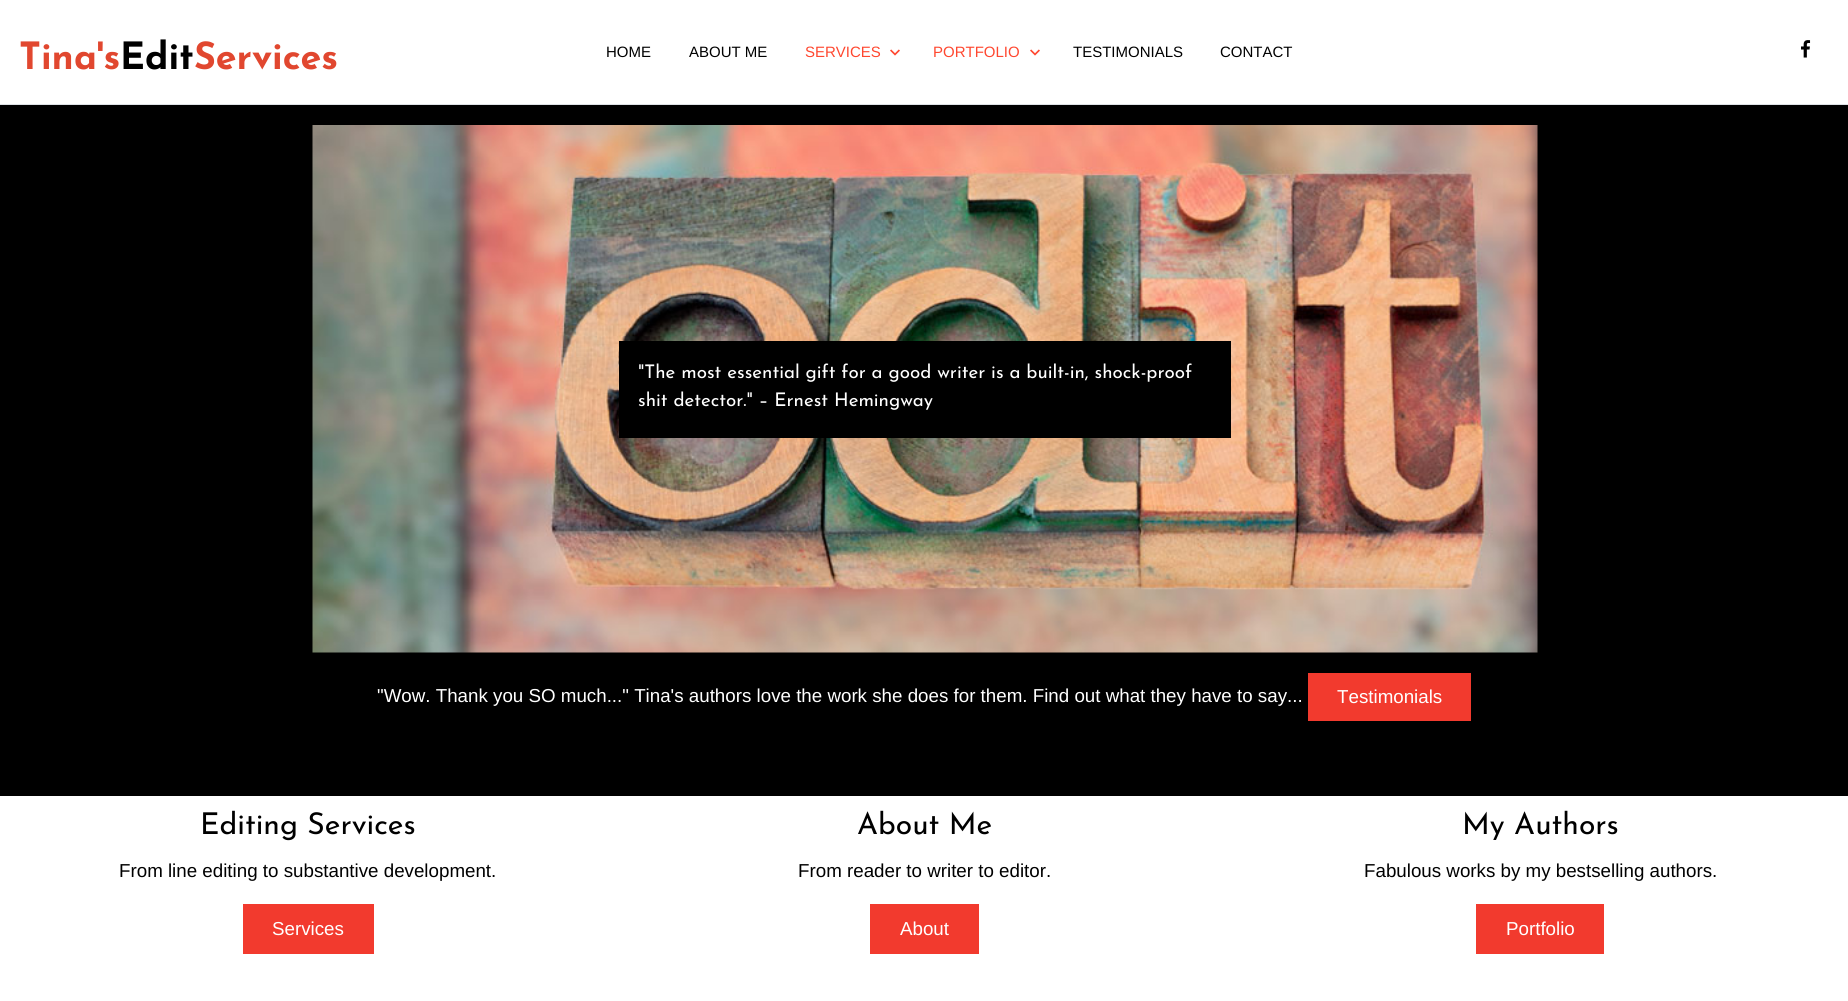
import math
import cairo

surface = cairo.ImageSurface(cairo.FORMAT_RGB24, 1848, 1001)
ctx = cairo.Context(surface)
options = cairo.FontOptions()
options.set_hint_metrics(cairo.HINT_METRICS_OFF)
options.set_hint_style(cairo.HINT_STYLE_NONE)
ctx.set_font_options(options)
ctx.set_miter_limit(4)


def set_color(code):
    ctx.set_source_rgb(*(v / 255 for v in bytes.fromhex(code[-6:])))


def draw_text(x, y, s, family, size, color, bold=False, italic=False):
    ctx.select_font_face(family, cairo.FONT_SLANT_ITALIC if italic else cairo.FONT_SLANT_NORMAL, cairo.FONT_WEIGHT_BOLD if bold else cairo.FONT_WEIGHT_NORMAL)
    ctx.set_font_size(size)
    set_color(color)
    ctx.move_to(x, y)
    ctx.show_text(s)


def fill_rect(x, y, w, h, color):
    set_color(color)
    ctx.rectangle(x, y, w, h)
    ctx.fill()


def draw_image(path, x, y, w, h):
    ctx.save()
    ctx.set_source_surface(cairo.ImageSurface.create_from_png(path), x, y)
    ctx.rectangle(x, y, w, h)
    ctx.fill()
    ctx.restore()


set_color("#ffffff")
ctx.paint()
fill_rect(0, 104, 1848, 1, "#dee2e6")
draw_text(19, 69, "Tina's", "Josefin Sans", 37.5, "#e1472f", bold=True)
draw_text(120, 69, "Edit", "Josefin Sans", 37.5, "#000000", bold=True)
draw_text(194, 69, "Services", "Josefin Sans", 37.5, "#e1472f", bold=True)
draw_text(606, 57, "HOME", "Liberation Sans", 15, "#000000")
draw_text(689, 57, "ABOUT ME", "Liberation Sans", 15, "#000000")
draw_text(805, 57, "SERVICES", "Liberation Sans", 15, "#ff472f")
draw_image("assets/img1.png", 890, 49, 10, 7)
draw_text(933, 57, "PORTFOLIO", "Liberation Sans", 15, "#ff472f")
draw_image("assets/img1.png", 1030, 49, 10, 7)
draw_text(1073, 57, "TESTIMONIALS", "Liberation Sans", 15, "#000000")
draw_text(1220, 57, "CONTACT", "Liberation Sans", 15, "#000000")
draw_image("assets/img2.png", 1801, 40, 10, 18)
fill_rect(0, 105, 1848, 691, "#000000")
draw_image("assets/img3.png", 312, 125, 1226, 528)
fill_rect(619, 341, 612, 97, "#000000")
draw_text(638, 378, "\"The most essential gift for a good writer is a built-in, shock-proof", "Josefin Sans", 18.75, "#ffffff")
draw_text(638, 406, "shit detector.\" – Ernest Hemingway", "Josefin Sans", 18.75, "#ffffff")
draw_text(377, 702, "\"Wow. Thank you SO much...\" Tina's authors love the work she does for them. Find out what they have to say...", "Liberation Sans", 18.75, "#ffffff")
fill_rect(1308, 673, 163, 48, "#f23a2e")
draw_text(1337, 703, "Testimonials", "Liberation Sans", 18.75, "#ffffff")
draw_text(200, 834, "Editing Services", "Josefin Sans", 30, "#000000")
draw_text(119, 877, "From line editing to substantive development.", "Liberation Sans", 18.75, "#000000")
fill_rect(243, 904, 131, 50, "#f23a2e")
draw_text(272, 935, "Services", "Liberation Sans", 18.75, "#ffffff")
draw_text(857, 834, "About Me", "Josefin Sans", 30, "#000000")
draw_text(798, 877, "From reader to writer to editor.", "Liberation Sans", 18.75, "#000000")
fill_rect(870, 904, 109, 50, "#f23a2e")
draw_text(900, 935, "About", "Liberation Sans", 18.75, "#ffffff")
draw_text(1462, 834, "My Authors", "Josefin Sans", 30, "#000000")
draw_text(1364, 877, "Fabulous works by my bestselling authors.", "Liberation Sans", 18.75, "#000000")
fill_rect(1476, 904, 128, 50, "#f23a2e")
draw_text(1506, 935, "Portfolio", "Liberation Sans", 18.75, "#ffffff")
surface.write_to_png("output.png")
